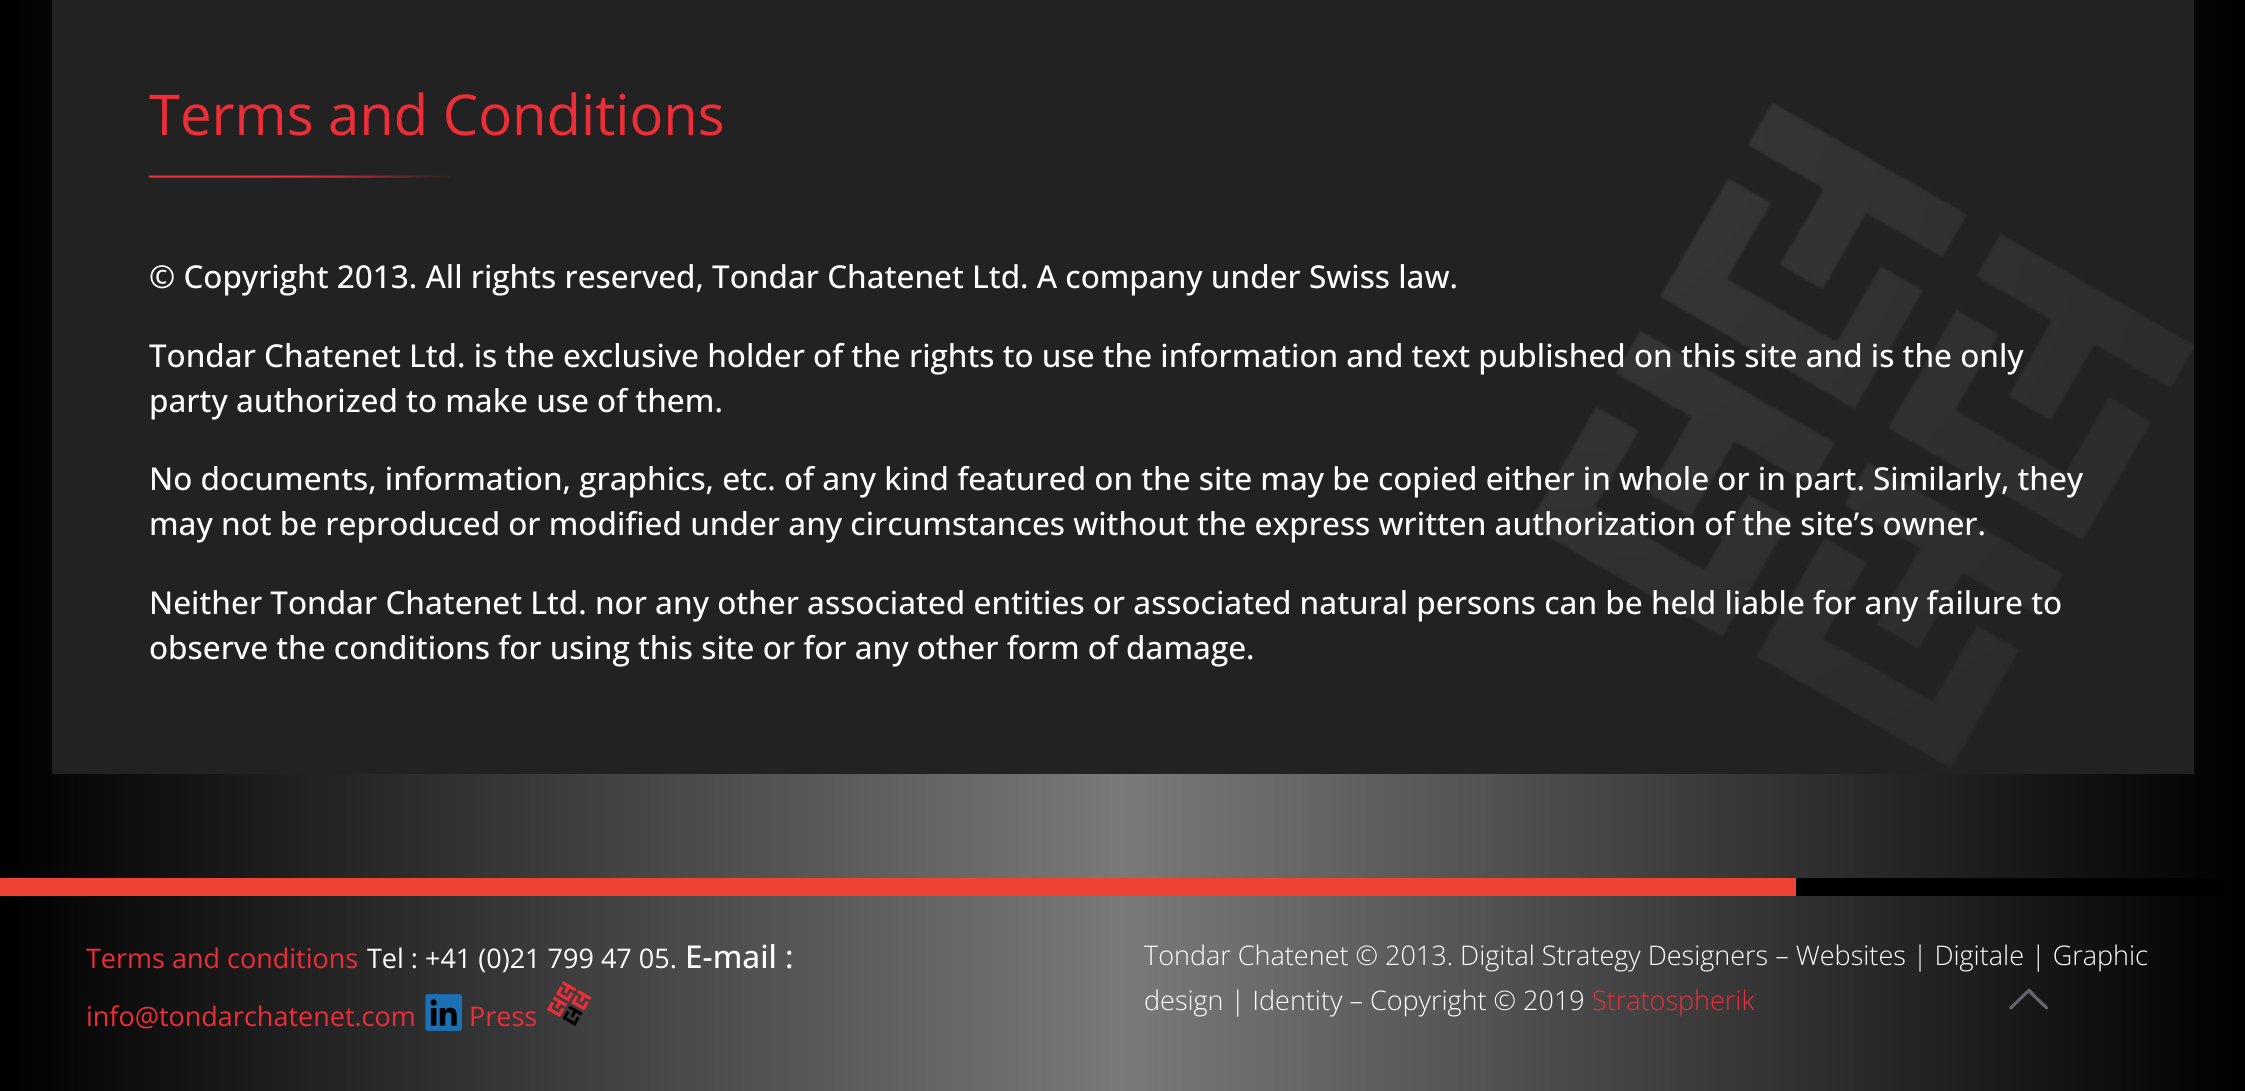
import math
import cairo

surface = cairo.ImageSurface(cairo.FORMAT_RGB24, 2245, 1091)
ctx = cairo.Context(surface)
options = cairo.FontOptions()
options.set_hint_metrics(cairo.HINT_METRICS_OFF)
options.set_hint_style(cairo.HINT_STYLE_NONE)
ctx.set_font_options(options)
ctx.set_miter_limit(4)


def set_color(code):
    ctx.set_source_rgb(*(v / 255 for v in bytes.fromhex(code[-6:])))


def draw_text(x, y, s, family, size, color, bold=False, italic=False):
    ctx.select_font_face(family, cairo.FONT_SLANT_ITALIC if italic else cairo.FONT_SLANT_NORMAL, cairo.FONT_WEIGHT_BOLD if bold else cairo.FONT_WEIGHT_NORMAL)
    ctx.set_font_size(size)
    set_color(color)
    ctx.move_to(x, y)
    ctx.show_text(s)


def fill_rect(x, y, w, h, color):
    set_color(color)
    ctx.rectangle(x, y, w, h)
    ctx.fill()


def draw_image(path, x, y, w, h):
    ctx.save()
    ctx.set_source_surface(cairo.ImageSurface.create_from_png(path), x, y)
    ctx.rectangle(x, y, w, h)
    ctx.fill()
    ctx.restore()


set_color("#ffffff")
ctx.paint()
gradient = cairo.LinearGradient(0, 96, 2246, 96)
gradient.add_color_stop_rgba(0, 0, 0, 0, 1)
gradient.add_color_stop_rgba(0.5, 0.478, 0.478, 0.478, 1)
gradient.add_color_stop_rgba(1, 0, 0, 0, 1)
ctx.set_source(gradient)
ctx.rectangle(0, 0, 2245, 1091)
ctx.fill()
fill_rect(52, 0, 2142, 774, "#222222")
draw_text(149, 135, "Terms and Conditions", "Open Sans", 56.25, "#ed2d38")
draw_image("assets/img1.png", 148, 175, 302, 3)
draw_text(149, 288, "© Copyright 2013. All rights reserved, Tondar Chatenet Ltd. A company under Swiss law.", "Open Sans Medium", 31.5, "#ffffff")
draw_image("assets/img2.png", 1528, 103, 666, 665)
draw_text(149, 367, "Tondar Chatenet Ltd. is the exclusive holder of the rights to use the information and text published on this site and is the only", "Open Sans Medium", 31.5, "#ffffff")
draw_text(149, 412, "party authorized to make use of them.", "Open Sans Medium", 31.5, "#ffffff")
draw_text(149, 490, "No documents, information, graphics, etc. of any kind featured on the site may be copied either in whole or in part. Similarly, they", "Open Sans Medium", 31.5, "#ffffff")
draw_text(149, 535, "may not be reproduced or modified under any circumstances without the express written authorization of the site’s owner.", "Open Sans Medium", 31.5, "#ffffff")
draw_text(149, 614, "Neither Tondar Chatenet Ltd. nor any other associated entities or associated natural persons can be held liable for any failure to", "Open Sans Medium", 31.5, "#ffffff")
draw_text(149, 659, "observe the conditions for using this site or for any other form of damage.", "Open Sans Medium", 31.5, "#ffffff")
fill_rect(0, 878, 1796, 18, "#ef4135")
fill_rect(1796, 878, 427, 18, "#000000")
draw_text(86, 968, "Terms and conditions", "Open Sans", 27, "#ed2d38")
draw_text(367, 968, "Tel : +41 (0)21 799 47 05.", "Open Sans", 27, "#ffffff")
draw_text(685, 968, "E-mail :", "Open Sans Medium", 31.5, "#ffffff")
draw_text(86, 1026, "info@tondarchatenet.com", "Open Sans", 27, "#ed2d38")
fill_rect(425, 997, 32, 31, "#000000")
draw_image("assets/img3.png", 425, 994, 37, 37)
draw_text(469, 1026, "Press", "Open Sans", 27, "#ed2d38")
draw_image("assets/img4.png", 546, 981, 46, 45)
draw_text(1144, 965, "Tondar Chatenet © 2013. Digital Strategy Designers – Websites | Digitale | Graphic", "Open Sans Light", 27, "#ffffff")
draw_text(1144, 1010, "design | Identity – Copyright © 2019", "Open Sans Light", 27, "#ffffff")
draw_text(1592, 1010, "Stratospherik", "Open Sans Light", 27, "#ed2d38")
set_color("#65666c")
ctx.new_path()
ctx.move_to(2045.5, 1009)
ctx.line_to(2028.5, 993)
ctx.line_to(2015, 1006)
ctx.curve_to(2014, 1007, 2011, 1011.5, 2009.5, 1008.5)
ctx.line_to(2009.5, 1007)
ctx.line_to(2028.5, 988.5)
ctx.curve_to(2030, 988, 2035, 994, 2035.5, 995)
ctx.line_to(2044.5, 1003.5)
ctx.curve_to(2045, 1004, 2051, 1008.5, 2046.5, 1009.5)
ctx.close_path()
ctx.fill()
surface.write_to_png("output.png")
